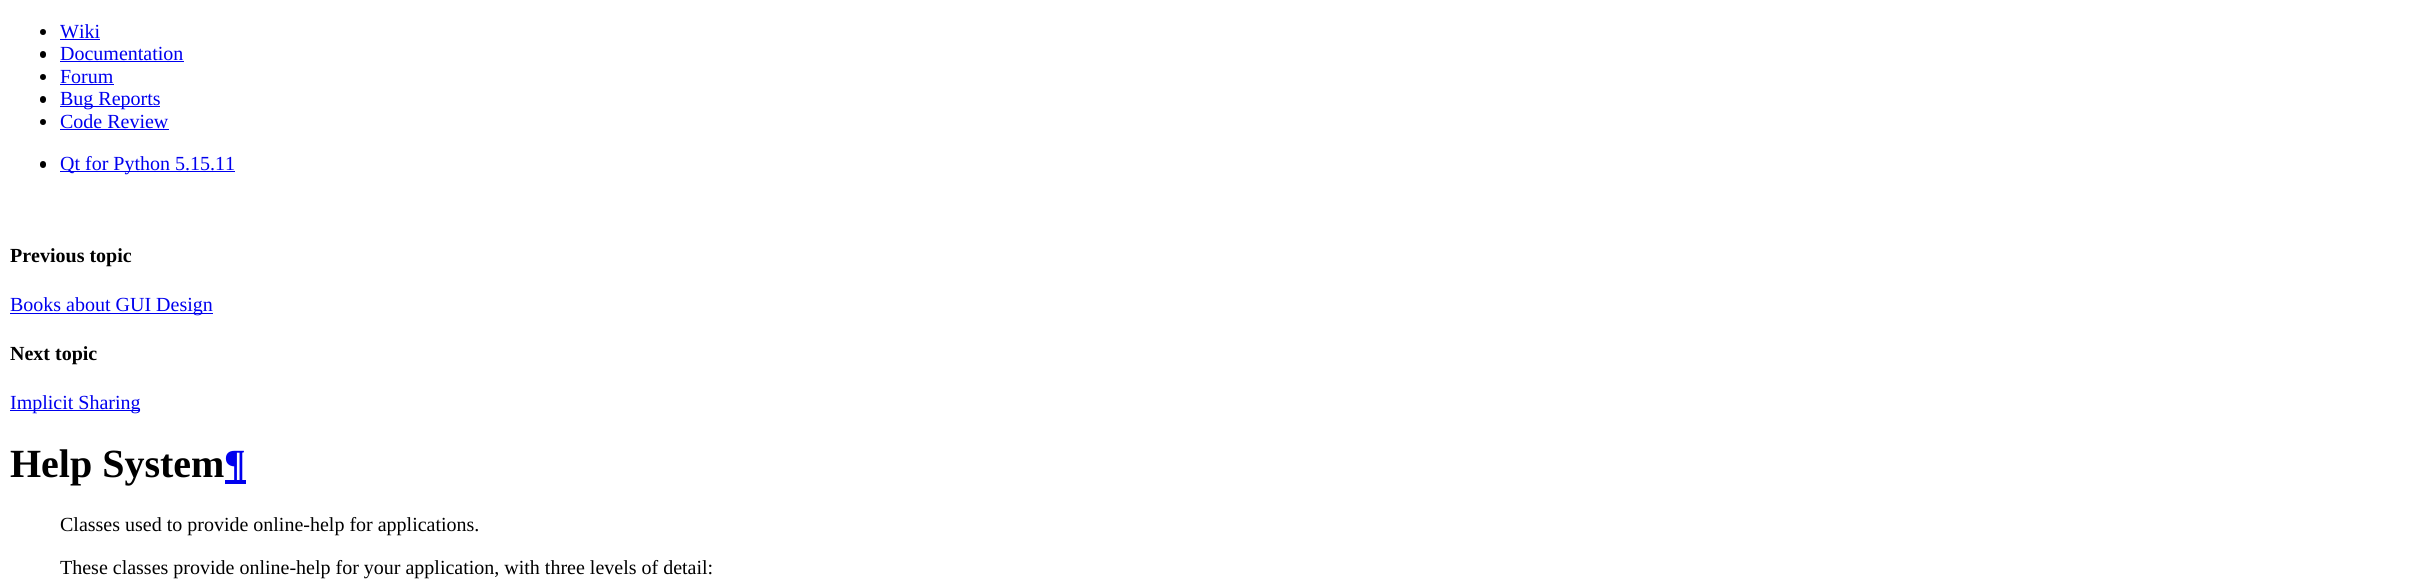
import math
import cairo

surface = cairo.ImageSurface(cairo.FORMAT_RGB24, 2424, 584)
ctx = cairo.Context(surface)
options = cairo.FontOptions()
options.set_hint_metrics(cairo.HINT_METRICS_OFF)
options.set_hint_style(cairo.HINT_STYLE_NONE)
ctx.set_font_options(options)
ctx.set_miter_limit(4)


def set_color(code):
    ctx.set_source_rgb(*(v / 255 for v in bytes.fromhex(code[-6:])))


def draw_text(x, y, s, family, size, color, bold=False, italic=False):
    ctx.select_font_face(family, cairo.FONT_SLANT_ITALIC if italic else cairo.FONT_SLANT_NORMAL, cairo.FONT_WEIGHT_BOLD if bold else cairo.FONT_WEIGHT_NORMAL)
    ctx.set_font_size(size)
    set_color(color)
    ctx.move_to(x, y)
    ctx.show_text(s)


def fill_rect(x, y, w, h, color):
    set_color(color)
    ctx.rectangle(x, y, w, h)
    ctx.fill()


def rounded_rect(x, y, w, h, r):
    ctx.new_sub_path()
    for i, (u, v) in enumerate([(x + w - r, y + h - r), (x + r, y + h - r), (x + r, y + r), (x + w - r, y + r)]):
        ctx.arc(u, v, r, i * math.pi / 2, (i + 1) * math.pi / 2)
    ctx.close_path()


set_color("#ffffff")
ctx.paint()
set_color("#000000")
ctx.arc(43, 32, 3, 0, 2 * math.pi)
ctx.fill()
draw_text(60, 38, "Wiki", "Liberation Serif", 20, "#0000ee")
fill_rect(60, 39, 40, 1, "#0000ee")
set_color("#000000")
rounded_rect(40, 51, 6, 7, 3)
ctx.fill()
draw_text(60, 60, "Documentation", "Liberation Serif", 20, "#0000ee")
fill_rect(60, 61, 124, 1, "#0000ee")
set_color("#000000")
ctx.new_path()
ctx.arc(43, 77, 3, 0, 2 * math.pi)
ctx.fill()
draw_text(60, 83, "Forum", "Liberation Serif", 20, "#0000ee")
fill_rect(60, 84, 54, 1, "#0000ee")
set_color("#000000")
rounded_rect(40, 96, 6, 7, 3)
ctx.fill()
fill_rect(60, 106, 100, 1, "#0000ee")
draw_text(60, 105, "Bug Reports", "Liberation Serif", 20, "#0000ee")
set_color("#000000")
ctx.new_path()
ctx.arc(43, 122, 3, 0, 2 * math.pi)
ctx.fill()
draw_text(60, 128, "Code Review", "Liberation Serif", 20, "#0000ee")
fill_rect(60, 129, 109, 1, "#0000ee")
set_color("#000000")
rounded_rect(40, 161, 6, 7, 3)
ctx.fill()
fill_rect(60, 171, 175, 1, "#0000ee")
draw_text(60, 170, "Qt for Python 5.15.11", "Liberation Serif", 20, "#0000ee")
draw_text(10, 262, "Previous topic", "Liberation Serif", 20, "#000000", bold=True)
fill_rect(10, 313, 203, 1, "#0000ee")
draw_text(10, 311, "Books about GUI Design", "Liberation Serif", 20, "#0000ee")
draw_text(10, 360, "Next topic", "Liberation Serif", 20, "#000000", bold=True)
fill_rect(10, 410, 130, 1, "#0000ee")
draw_text(10, 409, "Implicit Sharing", "Liberation Serif", 20, "#0000ee")
draw_text(10, 477, "Help System", "Liberation Serif", 40, "#000000", bold=True)
fill_rect(225, 480, 21, 4, "#0000ee")
draw_text(224, 477, "¶", "Liberation Serif", 40, "#0000ee", bold=True)
draw_text(60, 531, "Classes used to provide online-help for applications.", "Liberation Serif", 20, "#000000")
draw_text(60, 574, "These classes provide online-help for your application, with three levels of detail:", "Liberation Serif", 20, "#000000")
surface.write_to_png("output.png")
